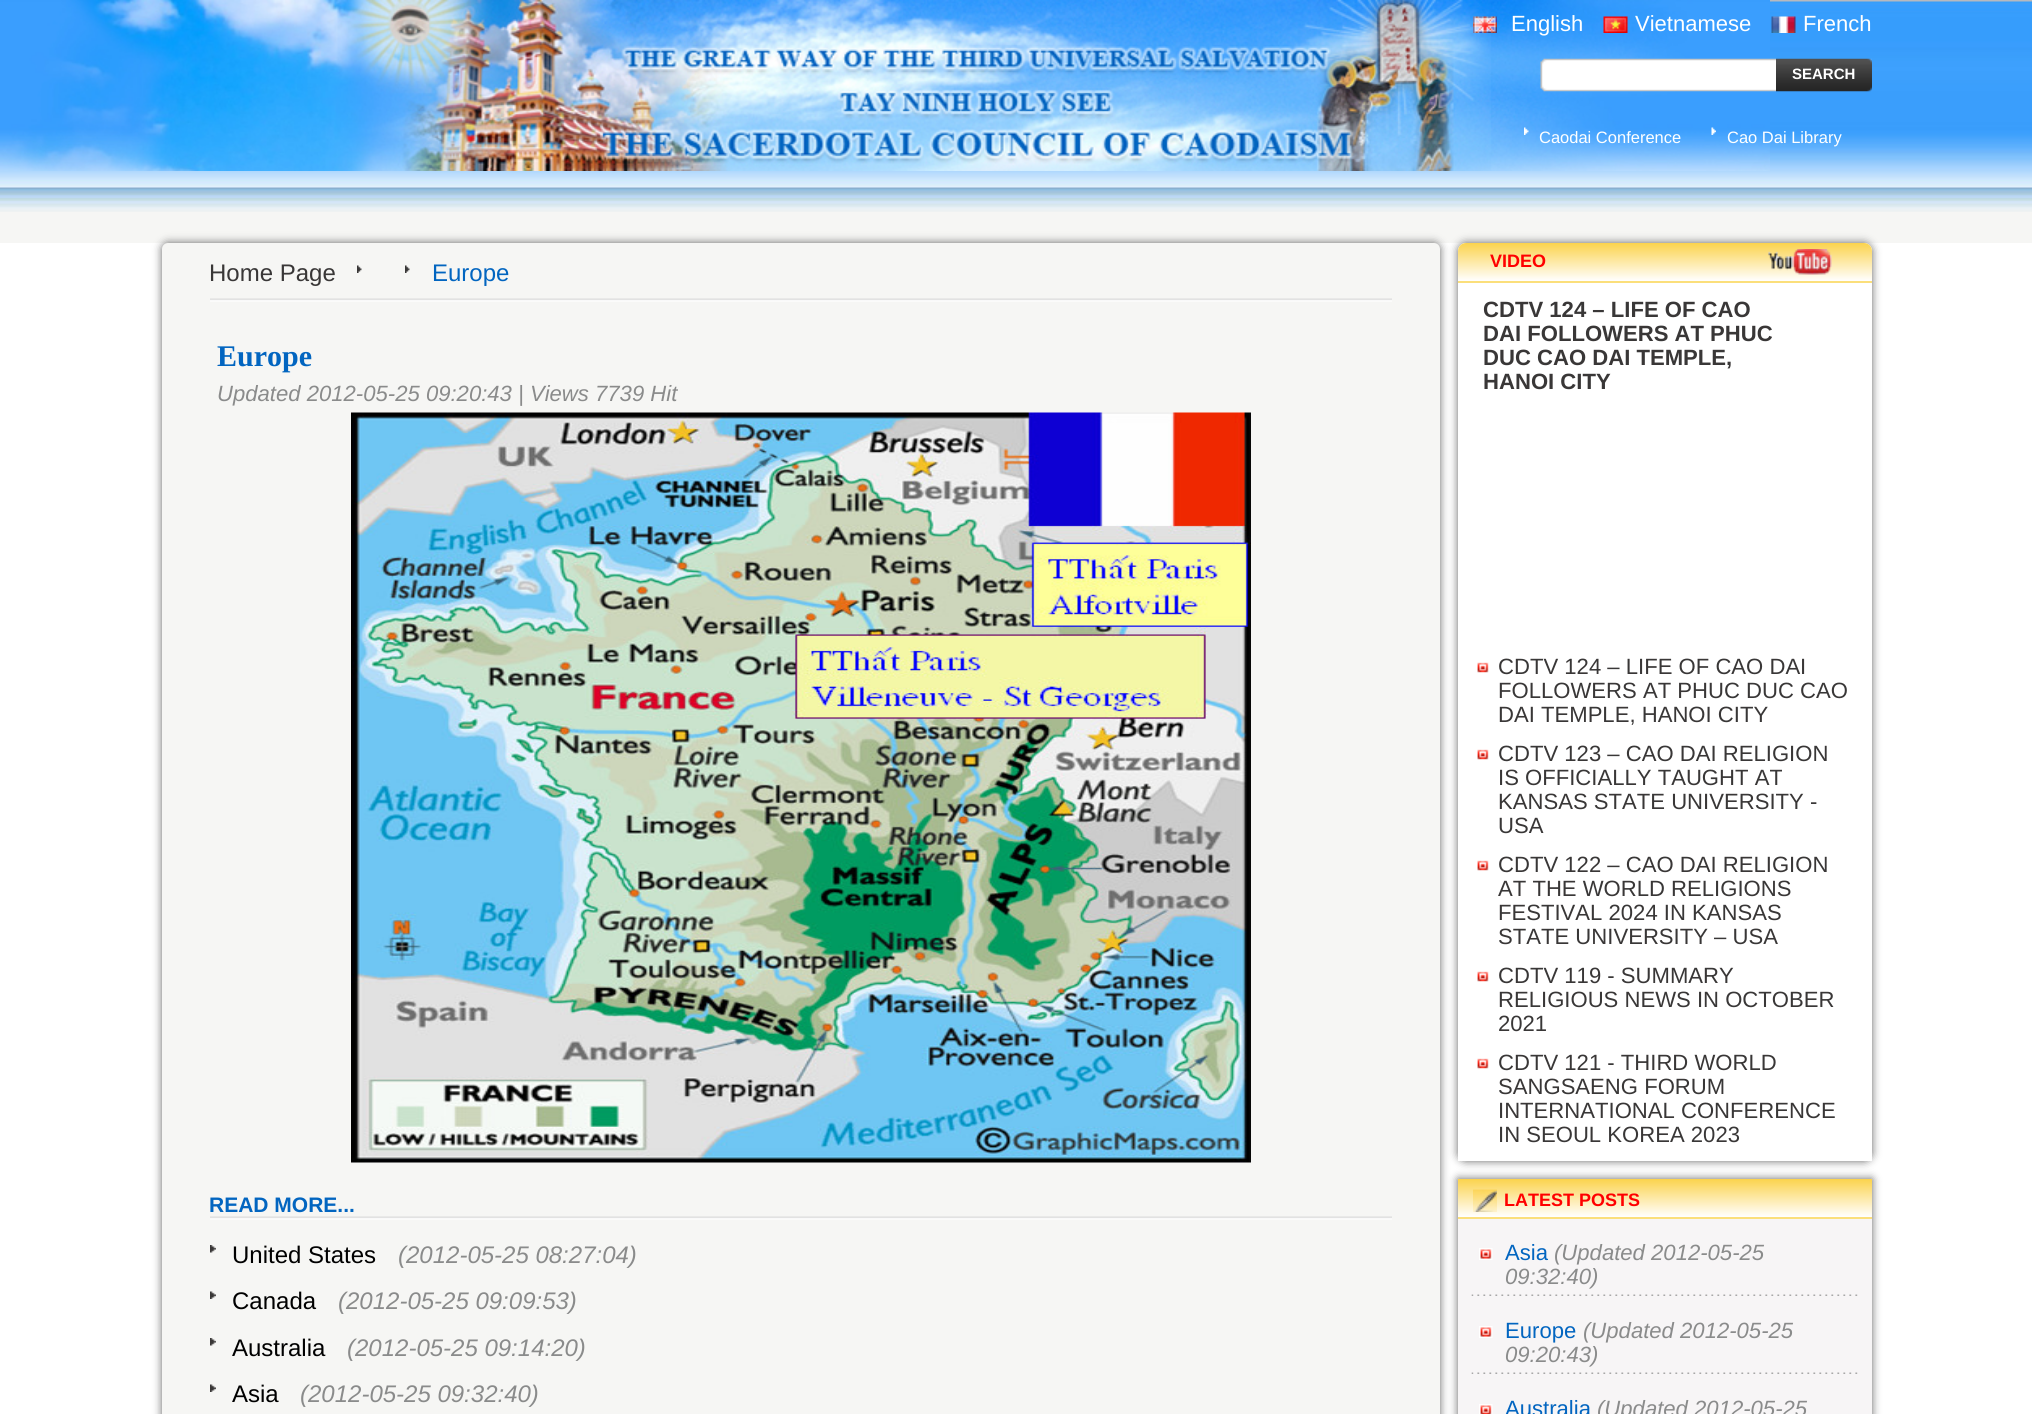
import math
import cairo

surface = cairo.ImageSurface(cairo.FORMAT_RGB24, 2032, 1414)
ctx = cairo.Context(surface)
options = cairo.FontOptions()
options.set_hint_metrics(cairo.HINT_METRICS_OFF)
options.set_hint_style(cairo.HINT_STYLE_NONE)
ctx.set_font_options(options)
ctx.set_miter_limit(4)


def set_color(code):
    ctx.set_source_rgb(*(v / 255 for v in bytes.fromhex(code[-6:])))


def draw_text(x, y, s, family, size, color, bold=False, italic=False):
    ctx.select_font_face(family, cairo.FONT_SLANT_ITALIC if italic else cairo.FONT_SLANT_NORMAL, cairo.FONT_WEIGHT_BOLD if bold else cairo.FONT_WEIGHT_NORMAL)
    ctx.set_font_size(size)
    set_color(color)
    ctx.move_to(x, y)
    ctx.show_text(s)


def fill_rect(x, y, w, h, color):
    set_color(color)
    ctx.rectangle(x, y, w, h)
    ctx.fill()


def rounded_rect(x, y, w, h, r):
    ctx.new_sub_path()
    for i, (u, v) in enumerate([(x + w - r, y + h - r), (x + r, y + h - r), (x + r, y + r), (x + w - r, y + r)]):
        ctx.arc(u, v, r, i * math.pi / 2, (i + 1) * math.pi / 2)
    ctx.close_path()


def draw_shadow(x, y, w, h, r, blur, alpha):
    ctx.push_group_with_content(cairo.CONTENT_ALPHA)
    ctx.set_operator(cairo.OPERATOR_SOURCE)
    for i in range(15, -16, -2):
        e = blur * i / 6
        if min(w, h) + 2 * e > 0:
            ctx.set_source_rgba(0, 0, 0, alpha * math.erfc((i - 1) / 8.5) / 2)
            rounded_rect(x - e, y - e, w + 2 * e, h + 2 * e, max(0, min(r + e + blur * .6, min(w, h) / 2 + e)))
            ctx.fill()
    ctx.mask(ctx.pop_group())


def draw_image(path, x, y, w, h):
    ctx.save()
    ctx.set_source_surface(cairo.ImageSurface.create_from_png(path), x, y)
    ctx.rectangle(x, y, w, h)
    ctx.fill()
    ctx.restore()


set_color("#f6f6f4")
ctx.paint()
draw_image("assets/img1.png", 0, 0, 2032, 212)
draw_image("assets/img2.png", 0, 0, 1770, 171)
draw_image("assets/img3.png", 1473, 16, 24, 17)
draw_text(1511, 31, "English", "Liberation Sans", 22, "#ffffff")
draw_image("assets/img4.png", 1603, 16, 25, 17)
draw_text(1635, 31, "Vietnamese", "Liberation Sans", 22, "#ffffff")
draw_image("assets/img5.png", 1771, 16, 25, 17)
draw_text(1803, 31, "French", "Liberation Sans", 22, "#ffffff")
draw_image("assets/img6.png", 1540, 58, 236, 34)
draw_image("assets/img7.png", 1776, 58, 96, 34)
draw_text(1792, 79, "SEARCH", "Liberation Sans", 15, "#ffffff", bold=True)
draw_image("assets/img8.png", 1524, 127, 5, 8)
draw_text(1539, 143, "Caodai Conference", "Liberation Sans", 16.5, "#ffffff")
draw_image("assets/img9.png", 1711, 127, 5, 8)
draw_text(1727, 143, "Cao Dai Library", "Liberation Sans", 16.5, "#ffffff")
fill_rect(0, 243, 2032, 1171, "#ffffff")
set_color("#666666")
draw_shadow(162, 243, 1278, 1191, 6, 4.5, 1)
set_color("#f6f6f4")
rounded_rect(162, 243, 1278, 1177, 6)
ctx.fill()
draw_image("assets/img10.png", 210, 298, 1182, 4)
draw_text(209, 281, "Home Page", "Liberation Sans", 24, "#393737")
draw_image("assets/img11.png", 357, 265, 5, 8)
draw_image("assets/img11.png", 405, 265, 5, 8)
draw_text(432, 281, "Europe", "Liberation Sans", 24, "#0265c0")
draw_text(217, 366, "Europe", "Liberation Serif", 30, "#0265c0", bold=True)
draw_text(217, 401, "Updated 2012-05-25 09:20:43 | Views 7739 Hit", "Liberation Sans", 22.1, "#8a8b8b", italic=True)
draw_image("assets/img12.png", 351, 412, 900, 751)
draw_image("assets/img10.png", 210, 1216, 1182, 4)
draw_text(209, 1212, "READ MORE...", "Liberation Sans", 21, "#0265c0", bold=True)
draw_image("assets/img13.png", 210, 1245, 6, 8)
draw_text(232, 1263, "United States", "Liberation Sans", 24, "#000000")
draw_text(398, 1263, "(2012-05-25 08:27:04)", "Liberation Sans", 24, "#8a8b8b", italic=True)
draw_image("assets/img14.png", 210, 1291, 6, 8)
draw_text(232, 1309, "Canada", "Liberation Sans", 24, "#000000")
draw_text(338, 1309, "(2012-05-25 09:09:53)", "Liberation Sans", 24, "#8a8b8b", italic=True)
draw_image("assets/img13.png", 210, 1338, 6, 8)
draw_text(232, 1356, "Australia", "Liberation Sans", 24, "#000000")
draw_text(347, 1356, "(2012-05-25 09:14:20)", "Liberation Sans", 24, "#8a8b8b", italic=True)
draw_image("assets/img14.png", 210, 1384, 6, 8)
draw_text(232, 1402, "Asia", "Liberation Sans", 24, "#000000")
draw_text(300, 1402, "(2012-05-25 09:32:40)", "Liberation Sans", 24, "#8a8b8b", italic=True)
ctx.save()
ctx.set_fill_rule(cairo.FILL_RULE_EVEN_ODD)
ctx.new_path()
ctx.move_to(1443, 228)
ctx.line_to(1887, 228)
ctx.line_to(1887, 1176)
ctx.line_to(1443, 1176)
ctx.close_path()
ctx.move_to(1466, 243)
ctx.line_to(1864, 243)
ctx.curve_to(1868.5, 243, 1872, 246.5, 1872, 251)
ctx.line_to(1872, 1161)
ctx.line_to(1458, 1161)
ctx.line_to(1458, 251)
ctx.curve_to(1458, 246.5, 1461.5, 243, 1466, 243)
ctx.close_path()
ctx.clip()
set_color("#666666")
draw_shadow(1458, 243, 414, 918, 8, 4.5, 1)
ctx.restore()
gradient = cairo.LinearGradient(1665, 243, 1665, 281)
gradient.add_color_stop_rgba(0, 0.984, 0.827, 0.302, 1)
gradient.add_color_stop_rgba(1, 1, 1, 1, 1)
ctx.set_source(gradient)
ctx.new_path()
ctx.move_to(1466, 243)
ctx.line_to(1864, 243)
ctx.curve_to(1868.5, 243, 1872, 246.5, 1872, 251)
ctx.line_to(1872, 281)
ctx.line_to(1458, 281)
ctx.line_to(1458, 251)
ctx.curve_to(1458, 246.5, 1461.5, 243, 1466, 243)
ctx.close_path()
ctx.fill()
fill_rect(1458, 281, 414, 2, "#fbdf7b")
draw_text(1490, 267, "VIDEO", "Liberation Sans", 18, "#ff0000", bold=True)
draw_image("assets/img15.png", 1768, 249, 64, 26)
draw_text(1483, 317, "CDTV 124 – LIFE OF CAO", "Liberation Sans", 22.1, "#393737", bold=True)
draw_text(1483, 341, "DAI FOLLOWERS AT PHUC", "Liberation Sans", 22.1, "#393737", bold=True)
draw_text(1483, 365, "DUC CAO DAI TEMPLE,", "Liberation Sans", 22.1, "#393737", bold=True)
draw_text(1483, 389, "HANOI CITY", "Liberation Sans", 22.1, "#393737", bold=True)
draw_image("assets/img16.png", 1477, 662, 12, 11)
draw_text(1498, 674, "CDTV 124 – LIFE OF CAO DAI", "Liberation Sans", 22.1, "#393737")
draw_text(1498, 698, "FOLLOWERS AT PHUC DUC CAO", "Liberation Sans", 22.1, "#393737")
draw_text(1498, 722, "DAI TEMPLE, HANOI CITY", "Liberation Sans", 22.1, "#393737")
draw_image("assets/img16.png", 1477, 749, 12, 11)
draw_text(1498, 761, "CDTV 123 – CAO DAI RELIGION", "Liberation Sans", 22.1, "#393737")
draw_text(1498, 785, "IS OFFICIALLY TAUGHT AT", "Liberation Sans", 22.1, "#393737")
draw_text(1498, 809, "KANSAS STATE UNIVERSITY -", "Liberation Sans", 22.1, "#393737")
draw_text(1498, 833, "USA", "Liberation Sans", 22.1, "#393737")
draw_image("assets/img16.png", 1477, 860, 12, 11)
draw_text(1498, 872, "CDTV 122 – CAO DAI RELIGION", "Liberation Sans", 22.1, "#393737")
draw_text(1498, 896, "AT THE WORLD RELIGIONS", "Liberation Sans", 22.1, "#393737")
draw_text(1498, 920, "FESTIVAL 2024 IN KANSAS", "Liberation Sans", 22.1, "#393737")
draw_text(1498, 944, "STATE UNIVERSITY – USA", "Liberation Sans", 22.1, "#393737")
draw_image("assets/img16.png", 1477, 971, 12, 11)
draw_text(1498, 983, "CDTV 119 - SUMMARY", "Liberation Sans", 22.1, "#393737")
draw_text(1498, 1007, "RELIGIOUS NEWS IN OCTOBER", "Liberation Sans", 22.1, "#393737")
draw_text(1498, 1031, "2021", "Liberation Sans", 22.1, "#393737")
draw_image("assets/img16.png", 1477, 1058, 12, 11)
draw_text(1498, 1070, "CDTV 121 - THIRD WORLD", "Liberation Sans", 22.1, "#393737")
draw_text(1498, 1094, "SANGSAENG FORUM", "Liberation Sans", 22.1, "#393737")
draw_text(1498, 1118, "INTERNATIONAL CONFERENCE", "Liberation Sans", 22.1, "#393737")
draw_text(1498, 1142, "IN SEOUL KOREA 2023", "Liberation Sans", 22.1, "#393737")
set_color("#666666")
draw_shadow(1458, 1179, 414, 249, 0, 4.5, 1)
fill_rect(1458, 1219, 414, 195, "#f7f5f6")
gradient = cairo.LinearGradient(1665, 1179, 1665, 1217)
gradient.add_color_stop_rgba(0, 0.984, 0.827, 0.302, 1)
gradient.add_color_stop_rgba(1, 1, 1, 1, 1)
ctx.set_source(gradient)
ctx.rectangle(1458, 1179, 414, 38)
ctx.fill()
fill_rect(1458, 1217, 414, 2, "#fbdf7b")
draw_image("assets/img17.png", 1473, 1189, 24, 23)
draw_text(1504, 1206, "LATEST POSTS", "Liberation Sans", 18, "#ff0000", bold=True)
draw_image("assets/img18.png", 1471, 1294, 387, 2)
draw_image("assets/img19.png", 1479, 1248, 14, 12)
draw_text(1505, 1260, "Asia", "Liberation Sans", 22.1, "#0265c0")
draw_text(1554, 1260, "(Updated 2012-05-25", "Liberation Sans", 22.1, "#8a8b8b", italic=True)
draw_text(1505, 1284, "09:32:40)", "Liberation Sans", 22.1, "#8a8b8b", italic=True)
draw_image("assets/img18.png", 1471, 1372, 387, 2)
draw_image("assets/img19.png", 1479, 1326, 14, 12)
draw_text(1505, 1338, "Europe", "Liberation Sans", 22.1, "#0265c0")
draw_text(1583, 1338, "(Updated 2012-05-25", "Liberation Sans", 22.1, "#8a8b8b", italic=True)
draw_text(1505, 1362, "09:20:43)", "Liberation Sans", 22.1, "#8a8b8b", italic=True)
draw_image("assets/img20.png", 1479, 1404, 14, 10)
draw_text(1505, 1416, "Australia", "Liberation Sans", 22.1, "#0265c0")
draw_text(1597, 1416, "(Updated 2012-05-25", "Liberation Sans", 22.1, "#8a8b8b", italic=True)
surface.write_to_png("output.png")
